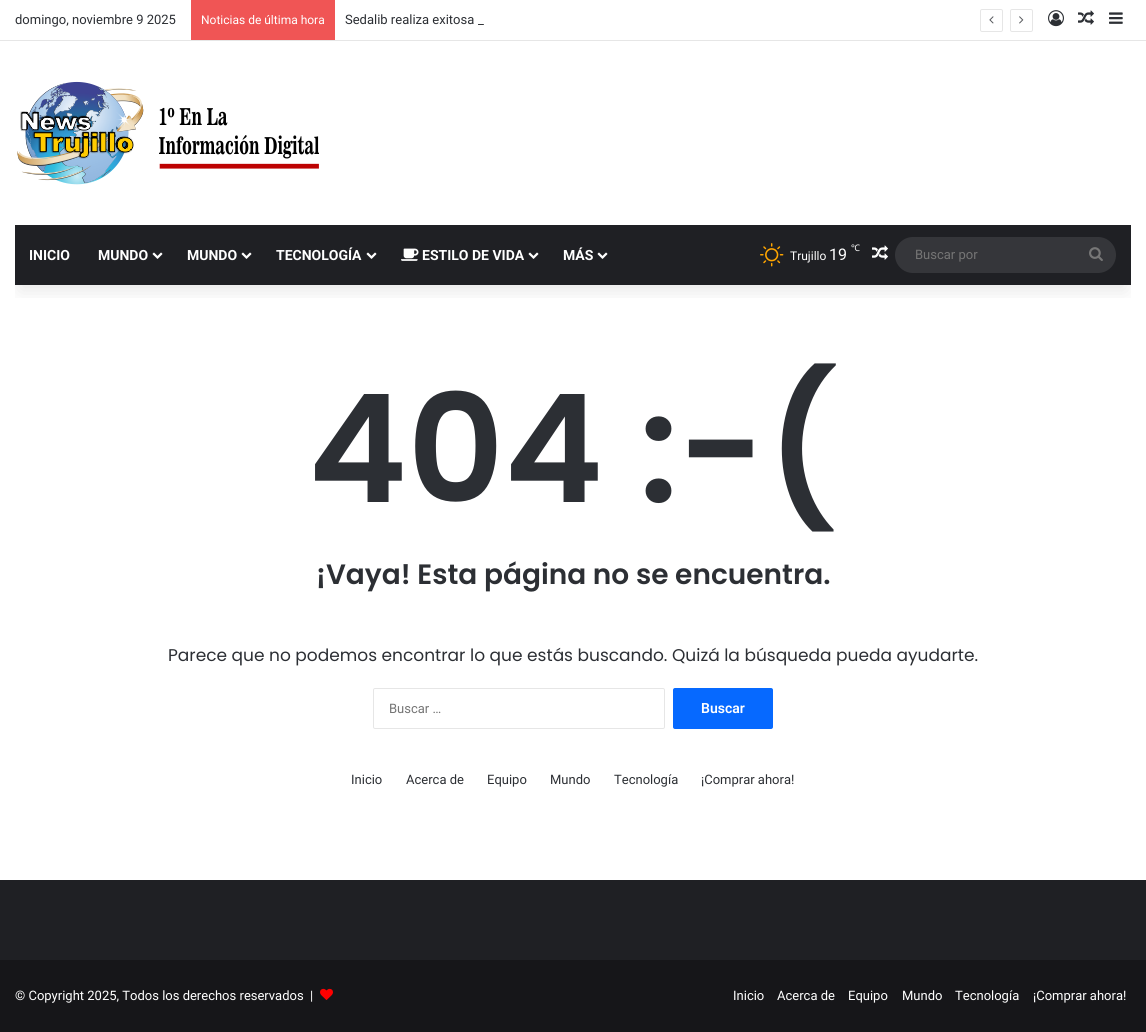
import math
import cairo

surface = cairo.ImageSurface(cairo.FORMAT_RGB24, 1146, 1032)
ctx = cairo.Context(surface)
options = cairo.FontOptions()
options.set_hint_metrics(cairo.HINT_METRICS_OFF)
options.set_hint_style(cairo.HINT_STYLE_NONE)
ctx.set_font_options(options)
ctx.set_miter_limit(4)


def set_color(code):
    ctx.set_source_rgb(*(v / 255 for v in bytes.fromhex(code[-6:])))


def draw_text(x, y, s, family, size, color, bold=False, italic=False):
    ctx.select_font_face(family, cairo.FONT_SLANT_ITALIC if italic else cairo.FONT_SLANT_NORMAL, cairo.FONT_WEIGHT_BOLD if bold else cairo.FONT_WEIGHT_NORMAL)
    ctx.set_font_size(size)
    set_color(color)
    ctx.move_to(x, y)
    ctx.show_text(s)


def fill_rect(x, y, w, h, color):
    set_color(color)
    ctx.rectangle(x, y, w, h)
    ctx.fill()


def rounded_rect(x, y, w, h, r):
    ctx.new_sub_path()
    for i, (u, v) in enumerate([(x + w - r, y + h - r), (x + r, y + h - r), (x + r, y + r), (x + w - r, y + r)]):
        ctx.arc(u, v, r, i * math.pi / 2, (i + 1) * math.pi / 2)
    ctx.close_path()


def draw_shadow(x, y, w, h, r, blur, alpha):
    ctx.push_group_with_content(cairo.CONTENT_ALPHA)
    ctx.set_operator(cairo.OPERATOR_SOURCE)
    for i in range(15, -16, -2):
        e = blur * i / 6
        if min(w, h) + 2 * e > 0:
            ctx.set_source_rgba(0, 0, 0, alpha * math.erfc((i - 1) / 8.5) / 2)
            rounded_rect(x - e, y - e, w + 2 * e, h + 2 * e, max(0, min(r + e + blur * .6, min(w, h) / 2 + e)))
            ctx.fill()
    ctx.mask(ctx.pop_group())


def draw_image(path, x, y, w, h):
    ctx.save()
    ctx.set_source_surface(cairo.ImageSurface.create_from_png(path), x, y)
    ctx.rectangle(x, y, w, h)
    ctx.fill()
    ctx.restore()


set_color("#ffffff")
ctx.paint()
ctx.save()
ctx.rectangle(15, 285, 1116, 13)
ctx.clip()
set_color("#000000")
draw_shadow(20, 45, 1106, 245, 0, 10, 0.1)
ctx.restore()
fill_rect(0, 40, 1146, 1, "#e6e6e6")
draw_text(15, 24, "domingo, noviembre 9 2025", "Roboto", 13, "#2c2f34")
fill_rect(191, 0, 144, 40, "#f05555")
draw_text(201, 24, "Noticias de última hora", "Roboto", 12, "#ffffff")
draw_text(345, 24, "Sedalib realiza exitosa", "Roboto", 13, "#2c2f34")
draw_text(478, 24, "_", "Roboto", 13, "#2c2f34")
rounded_rect(980.5, 9.5, 22, 22, 1.5)
set_color("#e6e6e6")
ctx.set_line_width(1)
ctx.stroke()
draw_image("assets/img1.png", 989, 16, 5, 8)
rounded_rect(1010.5, 9.5, 22, 22, 1.5)
ctx.stroke()
draw_image("assets/img2.png", 1019, 16, 5, 8)
draw_image("assets/img3.png", 1048, 10, 16, 17)
draw_image("assets/img4.png", 1078, 10, 16, 15)
draw_image("assets/img5.png", 1109, 12, 14, 12)
draw_image("assets/img6.png", 17, 81, 302, 104)
fill_rect(15, 225, 1116, 60, "#1f2024")
draw_text(29, 260, "INICIO", "Roboto", 14, "#ffffff", bold=True)
draw_text(98, 260, "MUNDO", "Roboto", 14, "#ffffff", bold=True)
draw_image("assets/img7.png", 152, 252, 11, 7)
draw_text(187, 260, "MUNDO", "Roboto", 14, "#ffffff", bold=True)
draw_image("assets/img7.png", 241, 252, 11, 7)
draw_text(276, 260, "TECNOLOGÍA", "Roboto", 14, "#ffffff", bold=True)
draw_image("assets/img7.png", 366, 252, 11, 7)
draw_image("assets/img8.png", 401, 248, 18, 13)
draw_text(422, 260, "ESTILO DE VIDA", "Roboto", 14, "#ffffff", bold=True)
draw_image("assets/img7.png", 528, 252, 11, 7)
draw_text(563, 260, "MÁS", "Roboto", 14, "#ffffff", bold=True)
draw_image("assets/img7.png", 597, 252, 11, 7)
draw_image("assets/img9.png", 760, 243, 24, 24)
draw_text(790, 260, "Trujillo", "Roboto", 12, "#ffffff")
draw_text(829, 260, "19", "Roboto", 16, "#ffffff")
draw_text(851, 251, "℃", "Noto Sans", 9, "#ffffff")
draw_image("assets/img10.png", 872, 245, 16, 15)
set_color("#35363a")
rounded_rect(895, 237, 221, 36, 18)
ctx.fill()
draw_text(915, 259, "Buscar por", "Roboto", 13, "#757575")
draw_image("assets/img11.png", 1089, 247, 14, 14)
draw_text(308, 502, "404 :-(", "Poppins SemiBold", 150, "#2c2f34")
draw_text(316, 584, "¡Vaya! Esta página no se encuentra.", "Poppins SemiBold", 28, "#2c2f34")
draw_text(168, 661, "Parece que no podemos encontrar lo que estás buscando. Quizá la búsqueda pueda ayudarte.", "Poppins", 17, "#2c2f34")
rounded_rect(373.5, 688.5, 291, 40, 1.5)
set_color("#e6e6e6")
ctx.stroke()
draw_text(389, 713, "Buscar …", "Roboto", 13, "#757575")
set_color("#0669ff")
rounded_rect(673, 688, 100, 41, 2)
ctx.fill()
draw_text(701, 713, "Buscar", "Roboto SemiBold", 14, "#ffffff")
draw_text(351, 784, "Inicio", "Roboto", 13, "#2c2f34")
draw_text(406, 784, "Acerca de", "Roboto", 13, "#2c2f34")
draw_text(487, 784, "Equipo", "Roboto", 13, "#2c2f34")
draw_text(550, 784, "Mundo", "Roboto", 13, "#2c2f34")
draw_text(614, 784, "Tecnología", "Roboto", 13, "#2c2f34")
draw_text(701, 784, "¡Comprar ahora!", "Roboto", 13, "#2c2f34")
fill_rect(0, 880, 1146, 80, "#1f2024")
fill_rect(0, 960, 1146, 72, "#161619")
draw_text(15, 1000, "© Copyright 2025, Todos los derechos reservados  |", "Roboto", 13, "#ffffff")
draw_image("assets/img12.png", 320, 988, 13, 12)
draw_text(733, 1000, "Inicio", "Roboto", 13, "#ffffff")
draw_text(777, 1000, "Acerca de", "Roboto", 13, "#ffffff")
draw_text(848, 1000, "Equipo", "Roboto", 13, "#ffffff")
draw_text(902, 1000, "Mundo", "Roboto", 13, "#ffffff")
draw_text(955, 1000, "Tecnología", "Roboto", 13, "#ffffff")
draw_text(1033, 1000, "¡Comprar ahora!", "Roboto", 13, "#ffffff")
surface.write_to_png("output.png")
